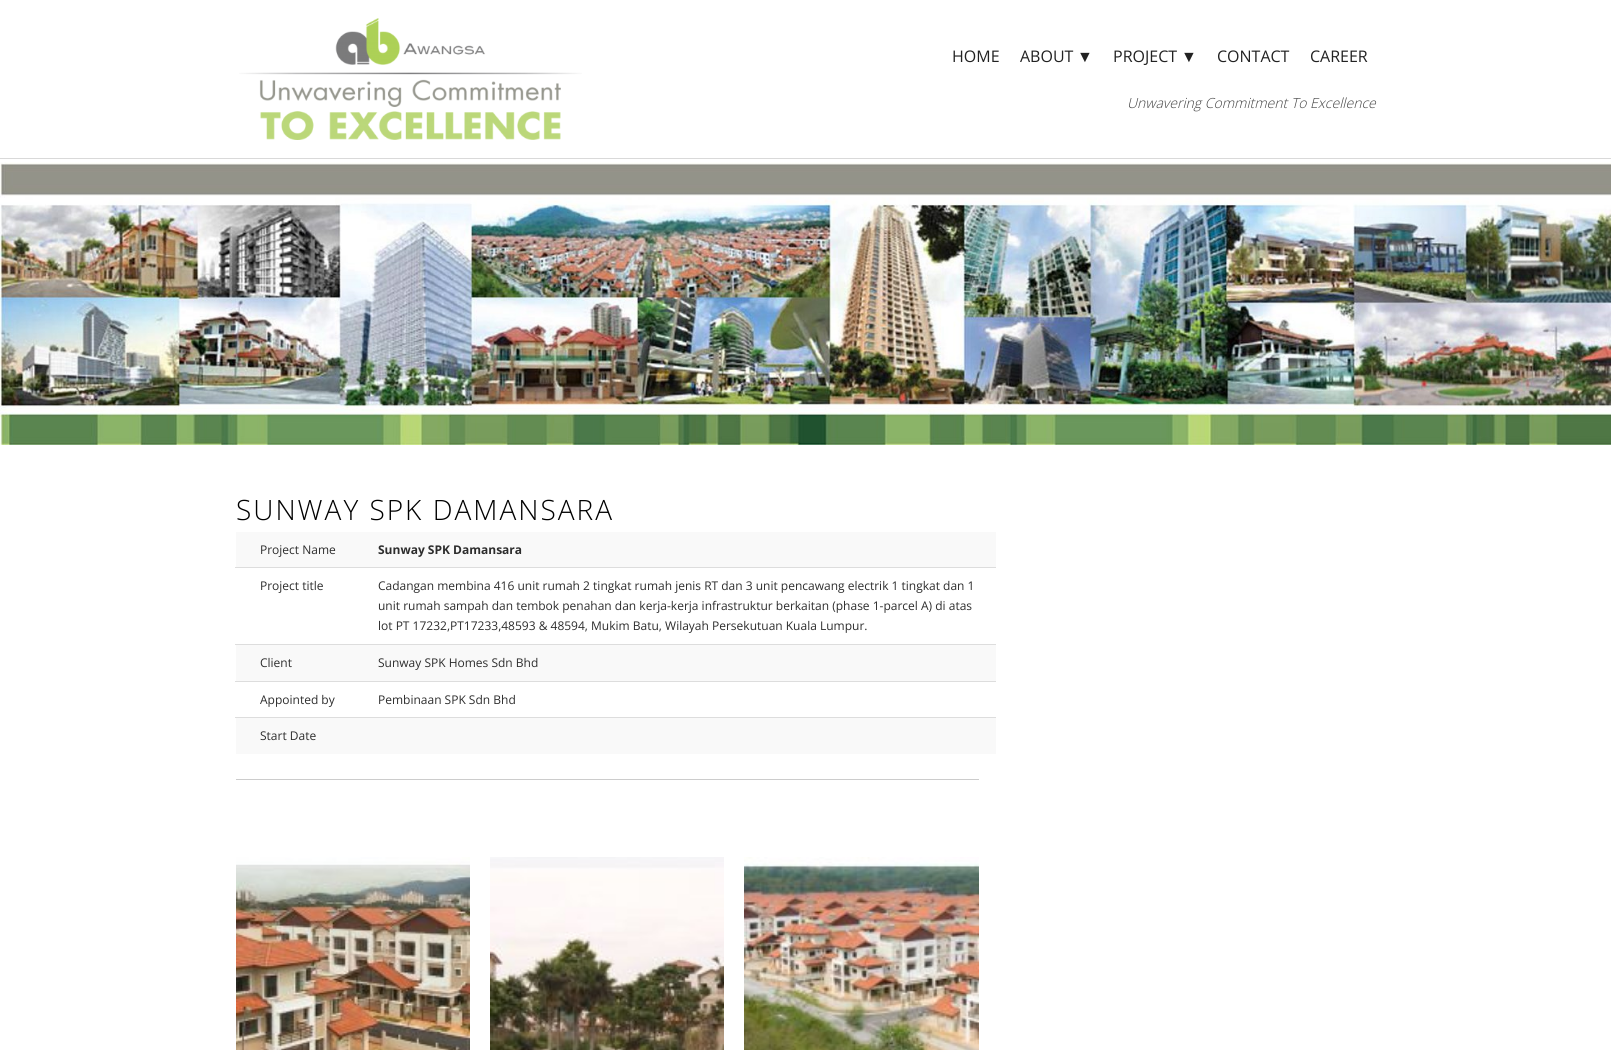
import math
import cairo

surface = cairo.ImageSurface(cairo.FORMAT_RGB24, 1611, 1050)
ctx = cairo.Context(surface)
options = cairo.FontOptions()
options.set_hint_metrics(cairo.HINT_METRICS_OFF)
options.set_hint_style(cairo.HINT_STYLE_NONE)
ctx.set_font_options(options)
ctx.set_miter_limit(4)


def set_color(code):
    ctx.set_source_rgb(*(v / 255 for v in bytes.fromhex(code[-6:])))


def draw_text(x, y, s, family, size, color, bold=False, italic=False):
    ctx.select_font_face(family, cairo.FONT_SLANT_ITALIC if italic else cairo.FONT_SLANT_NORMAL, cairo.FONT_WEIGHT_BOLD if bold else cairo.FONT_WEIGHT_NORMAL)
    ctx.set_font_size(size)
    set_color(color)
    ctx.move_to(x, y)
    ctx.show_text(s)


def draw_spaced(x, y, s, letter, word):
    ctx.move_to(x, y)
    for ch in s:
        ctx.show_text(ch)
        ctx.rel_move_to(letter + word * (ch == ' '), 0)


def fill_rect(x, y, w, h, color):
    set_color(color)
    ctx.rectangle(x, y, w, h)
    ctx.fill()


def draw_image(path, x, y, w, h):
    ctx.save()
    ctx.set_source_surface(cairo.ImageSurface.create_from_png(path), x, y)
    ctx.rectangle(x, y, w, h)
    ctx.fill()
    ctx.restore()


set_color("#ffffff")
ctx.paint()
fill_rect(0, 158, 1611, 1, "#d9d9d9")
draw_image("assets/img1.png", 239, 18, 343, 122)
draw_text(952, 62, "HOME", "Open Sans", 16, "#222222")
draw_text(1020, 62, "ABOUT", "Open Sans", 16, "#222222")
draw_text(1077, 62, "▼", "Liberation Sans", 16, "#222222")
draw_text(1113, 62, "PROJECT", "Open Sans", 16, "#222222")
draw_text(1181, 62, "▼", "Liberation Sans", 16, "#222222")
draw_text(1217, 62, "CONTACT", "Open Sans", 16, "#222222")
draw_text(1310, 62, "CAREER", "Open Sans", 16, "#222222")
draw_text(1127, 108, "Unwavering Commitment To Excellence", "Open Sans Light", 14, "#444444", italic=True)
draw_image("assets/img2.png", 0, 162, 1611, 283)
ctx.select_font_face("Open Sans Light")
ctx.set_font_size(28)
set_color("#000000")
draw_spaced(236, 520, "SUNWAY SPK DAMANSARA", 2, 0)
fill_rect(236, 532, 760, 35, "#f9f9f9")
draw_text(260, 554, "Project Name", "Open Sans", 12, "#2d2d2d")
draw_text(378, 554, "Sunway SPK Damansara", "Open Sans", 12, "#2d2d2d", bold=True)
draw_text(260, 590, "Project title", "Open Sans", 12, "#2d2d2d")
fill_rect(235, 567, 761, 1, "#dddddd")
draw_text(378, 590, "Cadangan membina 416 unit rumah 2 tingkat rumah jenis RT dan 3 unit pencawang electrik 1 tingkat dan 1", "Open Sans", 12, "#2d2d2d")
draw_text(378, 610, "unit rumah sampah dan tembok penahan dan kerja-kerja infrastruktur berkaitan (phase 1-parcel A) di atas", "Open Sans", 12, "#2d2d2d")
draw_text(378, 630, "lot PT 17232,PT17233,48593 & 48594, Mukim Batu, Wilayah Persekutuan Kuala Lumpur.", "Open Sans", 12, "#2d2d2d")
fill_rect(236, 645, 760, 36, "#f9f9f9")
draw_text(260, 667, "Client", "Open Sans", 12, "#2d2d2d")
fill_rect(235, 644, 761, 1, "#dddddd")
draw_text(378, 667, "Sunway SPK Homes Sdn Bhd", "Open Sans", 12, "#2d2d2d")
draw_text(260, 704, "Appointed by", "Open Sans", 12, "#2d2d2d")
fill_rect(235, 681, 761, 1, "#dddddd")
draw_text(378, 704, "Pembinaan SPK Sdn Bhd", "Open Sans", 12, "#2d2d2d")
fill_rect(235, 717, 761, 1, "#dddddd")
fill_rect(236, 718, 760, 36, "#f9f9f9")
draw_text(260, 740, "Start Date", "Open Sans", 12, "#2d2d2d")
fill_rect(236, 779, 743, 1, "#cccccc")
draw_image("assets/img3.png", 236, 857, 234, 193)
draw_image("assets/img4.png", 490, 857, 234, 193)
draw_image("assets/img5.png", 744, 857, 235, 193)
surface.write_to_png("output.png")
